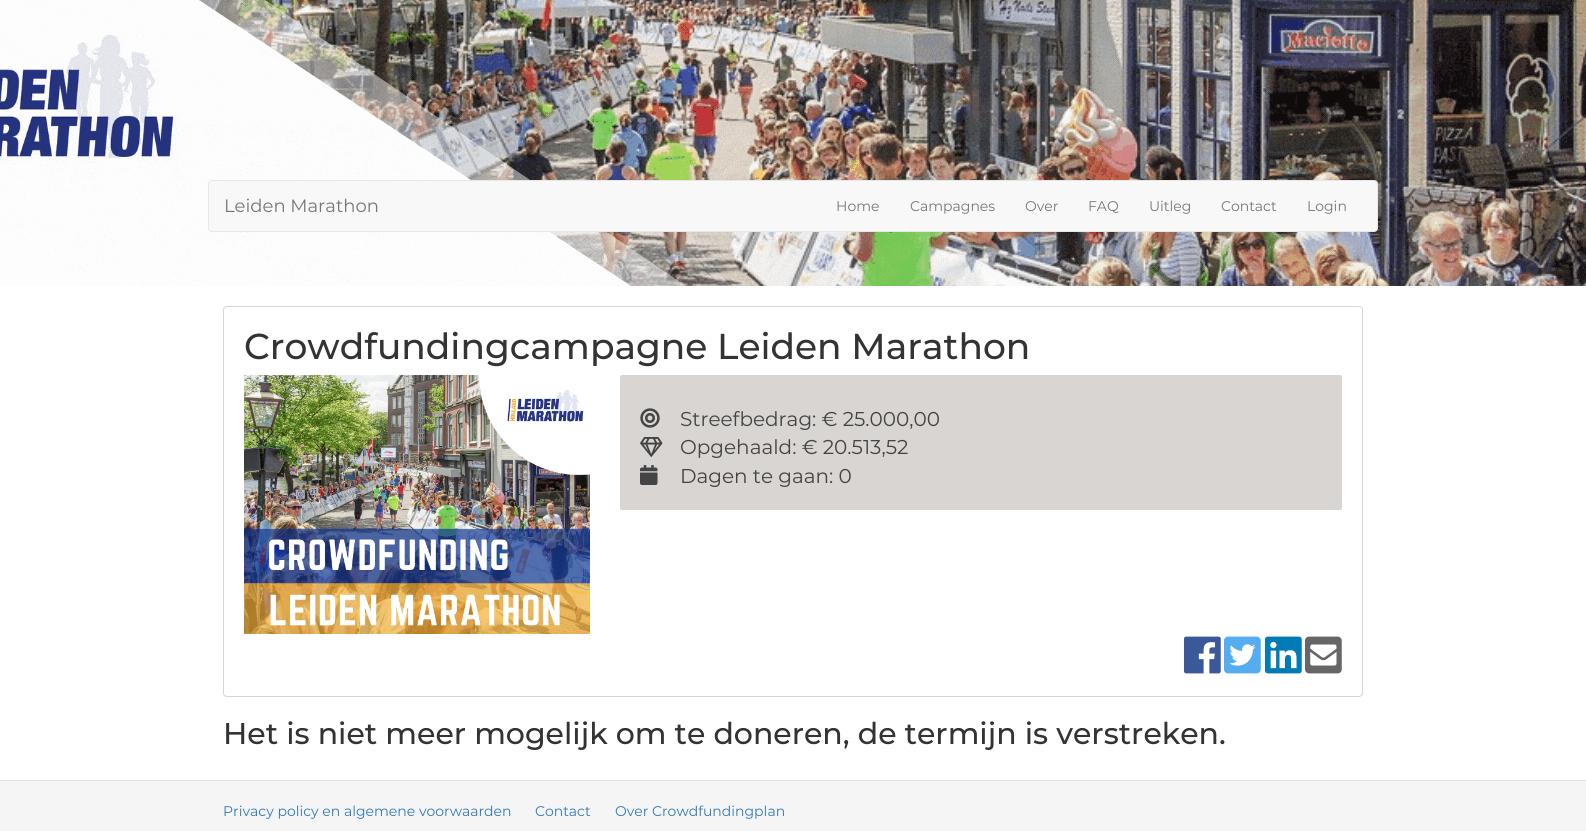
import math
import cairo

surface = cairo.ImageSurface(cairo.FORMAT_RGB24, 1586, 831)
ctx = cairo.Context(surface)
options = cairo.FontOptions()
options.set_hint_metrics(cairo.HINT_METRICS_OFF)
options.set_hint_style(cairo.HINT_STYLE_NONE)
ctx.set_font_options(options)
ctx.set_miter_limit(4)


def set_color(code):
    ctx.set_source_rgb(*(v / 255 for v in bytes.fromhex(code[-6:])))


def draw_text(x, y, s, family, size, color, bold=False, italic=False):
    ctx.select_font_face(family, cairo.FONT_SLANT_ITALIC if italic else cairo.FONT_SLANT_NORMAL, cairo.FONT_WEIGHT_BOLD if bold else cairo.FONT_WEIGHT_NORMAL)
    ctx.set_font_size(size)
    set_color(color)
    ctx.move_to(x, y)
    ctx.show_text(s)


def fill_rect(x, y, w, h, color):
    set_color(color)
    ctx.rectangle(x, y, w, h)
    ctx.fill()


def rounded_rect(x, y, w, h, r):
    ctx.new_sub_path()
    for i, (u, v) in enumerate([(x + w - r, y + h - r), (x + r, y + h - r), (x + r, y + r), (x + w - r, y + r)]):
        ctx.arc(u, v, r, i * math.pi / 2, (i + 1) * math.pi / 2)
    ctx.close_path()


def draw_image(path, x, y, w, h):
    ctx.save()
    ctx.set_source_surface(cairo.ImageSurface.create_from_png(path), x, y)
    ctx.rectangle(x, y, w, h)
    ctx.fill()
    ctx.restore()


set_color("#ffffff")
ctx.paint()
draw_image("assets/img1.png", 0, 0, 1586, 286)
set_color("#f8f8f8")
rounded_rect(208.5, 180.5, 1169, 51, 3.5)
ctx.fill_preserve()
set_color("#e7e7e7")
ctx.set_line_width(1)
ctx.stroke()
draw_text(224, 212, "Leiden Marathon", "Montserrat", 18, "#777777")
draw_text(836, 211, "Home", "Montserrat", 14, "#777777")
draw_text(910, 211, "Campagnes", "Montserrat", 14, "#777777")
draw_text(1025, 211, "Over", "Montserrat", 14, "#777777")
draw_text(1088, 211, "FAQ", "Montserrat", 14, "#777777")
draw_text(1149, 211, "Uitleg", "Montserrat", 14, "#777777")
draw_text(1221, 211, "Contact", "Montserrat", 14, "#777777")
draw_text(1307, 211, "Login", "Montserrat", 14, "#777777")
rounded_rect(223.5, 306.5, 1139, 390, 3.5)
set_color("#d8d5d2")
ctx.stroke()
draw_text(244, 359, "Crowdfundingcampagne Leiden Marathon", "Montserrat Medium", 36, "#333333")
draw_image("assets/img2.png", 244, 375, 346, 259)
set_color("#d8d5d2")
rounded_rect(620, 375, 722, 135, 2)
ctx.fill()
draw_image("assets/img3.png", 640, 408, 20, 20)
draw_text(680, 426, "Streefbedrag: € 25.000,00", "Montserrat", 20, "#444444")
draw_image("assets/img4.png", 640, 437, 23, 20)
draw_text(680, 454, "Opgehaald: € 20.513,52", "Montserrat", 20, "#444444")
draw_image("assets/img5.png", 640, 465, 18, 20)
draw_text(680, 483, "Dagen te gaan: 0", "Montserrat", 20, "#444444")
draw_image("assets/img6.png", 1184, 636, 37, 38)
draw_image("assets/img7.png", 1224, 636, 37, 38)
draw_image("assets/img8.png", 1265, 636, 37, 38)
draw_image("assets/img9.png", 1305, 636, 37, 38)
draw_text(223, 744, "Het is niet meer mogelijk om te doneren, de termijn is verstreken.", "Montserrat Medium", 30, "#333333")
fill_rect(0, 781, 1586, 50, "#f5f5f5")
fill_rect(0, 780, 1586, 1, "#dddddd")
draw_text(223, 816, "Privacy policy en algemene voorwaarden", "Montserrat", 14, "#337ab7")
draw_text(535, 816, "Contact", "Montserrat", 14, "#337ab7")
draw_text(615, 816, "Over Crowdfundingplan", "Montserrat", 14, "#337ab7")
surface.write_to_png("output.png")
